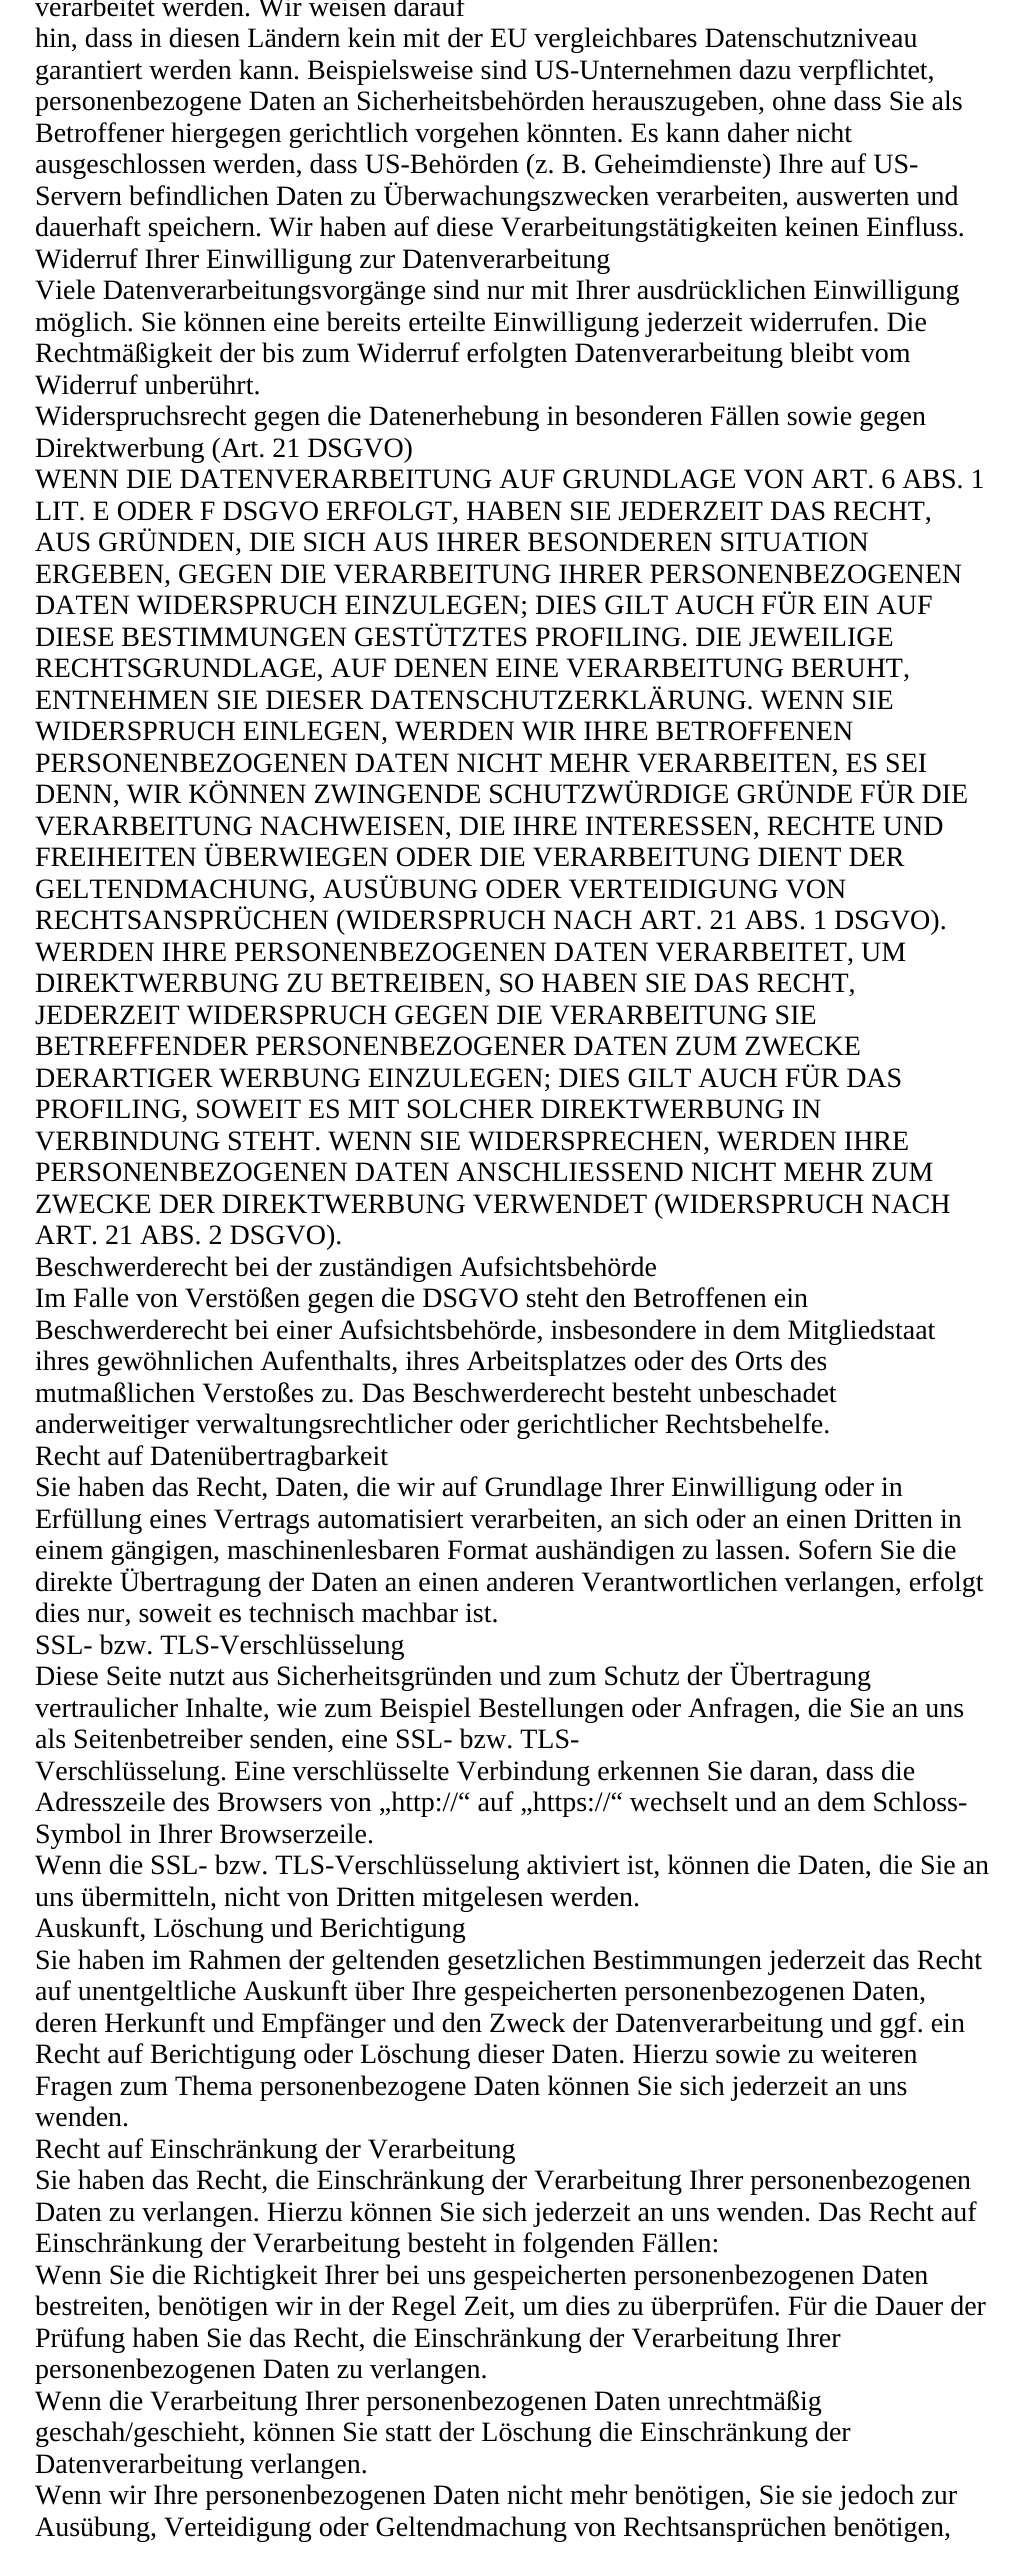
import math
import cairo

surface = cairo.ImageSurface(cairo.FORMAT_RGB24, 1028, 2559)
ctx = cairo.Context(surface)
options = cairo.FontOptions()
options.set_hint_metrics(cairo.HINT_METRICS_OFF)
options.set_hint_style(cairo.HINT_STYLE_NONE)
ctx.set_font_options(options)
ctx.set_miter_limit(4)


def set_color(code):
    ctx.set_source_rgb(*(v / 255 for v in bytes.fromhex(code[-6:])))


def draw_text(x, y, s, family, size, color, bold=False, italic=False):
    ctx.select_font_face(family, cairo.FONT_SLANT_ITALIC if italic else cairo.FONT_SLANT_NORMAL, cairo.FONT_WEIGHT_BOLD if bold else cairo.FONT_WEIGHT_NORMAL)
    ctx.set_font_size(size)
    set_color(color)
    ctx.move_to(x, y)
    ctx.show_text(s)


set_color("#ffffff")
ctx.paint()
draw_text(35, 16, "verarbeitet werden. Wir weisen darauf", "Liberation Serif", 28, "#000000")
draw_text(35, 47, "hin, dass in diesen Ländern kein mit der EU vergleichbares Datenschutzniveau", "Liberation Serif", 28, "#000000")
draw_text(35, 79, "garantiert werden kann. Beispielsweise sind US-Unternehmen dazu verpflichtet,", "Liberation Serif", 28, "#000000")
draw_text(35, 110, "personenbezogene Daten an Sicherheitsbehörden herauszugeben, ohne dass Sie als", "Liberation Serif", 28, "#000000")
draw_text(35, 142, "Betroffener hiergegen gerichtlich vorgehen könnten. Es kann daher nicht", "Liberation Serif", 28, "#000000")
draw_text(35, 173, "ausgeschlossen werden, dass US-Behörden (z. B. Geheimdienste) Ihre auf US-", "Liberation Serif", 28, "#000000")
draw_text(35, 205, "Servern befindlichen Daten zu Überwachungszwecken verarbeiten, auswerten und", "Liberation Serif", 28, "#000000")
draw_text(35, 236, "dauerhaft speichern. Wir haben auf diese Verarbeitungstätigkeiten keinen Einfluss.", "Liberation Serif", 28, "#000000")
draw_text(35, 268, "Widerruf Ihrer Einwilligung zur Datenverarbeitung", "Liberation Serif", 28, "#000000")
draw_text(35, 299, "Viele Datenverarbeitungsvorgänge sind nur mit Ihrer ausdrücklichen Einwilligung", "Liberation Serif", 28, "#000000")
draw_text(35, 331, "möglich. Sie können eine bereits erteilte Einwilligung jederzeit widerrufen. Die", "Liberation Serif", 28, "#000000")
draw_text(35, 362, "Rechtmäßigkeit der bis zum Widerruf erfolgten Datenverarbeitung bleibt vom", "Liberation Serif", 28, "#000000")
draw_text(35, 394, "Widerruf unberührt.", "Liberation Serif", 28, "#000000")
draw_text(35, 425, "Widerspruchsrecht gegen die Datenerhebung in besonderen Fällen sowie gegen", "Liberation Serif", 28, "#000000")
draw_text(35, 457, "Direktwerbung (Art. 21 DSGVO)", "Liberation Serif", 28, "#000000")
draw_text(35, 488, "WENN DIE DATENVERARBEITUNG AUF GRUNDLAGE VON ART. 6 ABS. 1", "Liberation Serif", 28, "#000000")
draw_text(35, 520, "LIT. E ODER F DSGVO ERFOLGT, HABEN SIE JEDERZEIT DAS RECHT,", "Liberation Serif", 28, "#000000")
draw_text(35, 551, "AUS GRÜNDEN, DIE SICH AUS IHRER BESONDEREN SITUATION", "Liberation Serif", 28, "#000000")
draw_text(35, 583, "ERGEBEN, GEGEN DIE VERARBEITUNG IHRER PERSONENBEZOGENEN", "Liberation Serif", 28, "#000000")
draw_text(35, 614, "DATEN WIDERSPRUCH EINZULEGEN; DIES GILT AUCH FÜR EIN AUF", "Liberation Serif", 28, "#000000")
draw_text(35, 646, "DIESE BESTIMMUNGEN GESTÜTZTES PROFILING. DIE JEWEILIGE", "Liberation Serif", 28, "#000000")
draw_text(35, 677, "RECHTSGRUNDLAGE, AUF DENEN EINE VERARBEITUNG BERUHT,", "Liberation Serif", 28, "#000000")
draw_text(35, 709, "ENTNEHMEN SIE DIESER DATENSCHUTZERKLÄRUNG. WENN SIE", "Liberation Serif", 28, "#000000")
draw_text(35, 740, "WIDERSPRUCH EINLEGEN, WERDEN WIR IHRE BETROFFENEN", "Liberation Serif", 28, "#000000")
draw_text(35, 772, "PERSONENBEZOGENEN DATEN NICHT MEHR VERARBEITEN, ES SEI", "Liberation Serif", 28, "#000000")
draw_text(35, 803, "DENN, WIR KÖNNEN ZWINGENDE SCHUTZWÜRDIGE GRÜNDE FÜR DIE", "Liberation Serif", 28, "#000000")
draw_text(35, 835, "VERARBEITUNG NACHWEISEN, DIE IHRE INTERESSEN, RECHTE UND", "Liberation Serif", 28, "#000000")
draw_text(35, 866, "FREIHEITEN ÜBERWIEGEN ODER DIE VERARBEITUNG DIENT DER", "Liberation Serif", 28, "#000000")
draw_text(35, 898, "GELTENDMACHUNG, AUSÜBUNG ODER VERTEIDIGUNG VON", "Liberation Serif", 28, "#000000")
draw_text(35, 929, "RECHTSANSPRÜCHEN (WIDERSPRUCH NACH ART. 21 ABS. 1 DSGVO).", "Liberation Serif", 28, "#000000")
draw_text(35, 961, "WERDEN IHRE PERSONENBEZOGENEN DATEN VERARBEITET, UM", "Liberation Serif", 28, "#000000")
draw_text(35, 992, "DIREKTWERBUNG ZU BETREIBEN, SO HABEN SIE DAS RECHT,", "Liberation Serif", 28, "#000000")
draw_text(35, 1024, "JEDERZEIT WIDERSPRUCH GEGEN DIE VERARBEITUNG SIE", "Liberation Serif", 28, "#000000")
draw_text(35, 1055, "BETREFFENDER PERSONENBEZOGENER DATEN ZUM ZWECKE", "Liberation Serif", 28, "#000000")
draw_text(35, 1087, "DERARTIGER WERBUNG EINZULEGEN; DIES GILT AUCH FÜR DAS", "Liberation Serif", 28, "#000000")
draw_text(35, 1118, "PROFILING, SOWEIT ES MIT SOLCHER DIREKTWERBUNG IN", "Liberation Serif", 28, "#000000")
draw_text(35, 1150, "VERBINDUNG STEHT. WENN SIE WIDERSPRECHEN, WERDEN IHRE", "Liberation Serif", 28, "#000000")
draw_text(35, 1181, "PERSONENBEZOGENEN DATEN ANSCHLIESSEND NICHT MEHR ZUM", "Liberation Serif", 28, "#000000")
draw_text(35, 1213, "ZWECKE DER DIREKTWERBUNG VERWENDET (WIDERSPRUCH NACH", "Liberation Serif", 28, "#000000")
draw_text(35, 1244, "ART. 21 ABS. 2 DSGVO).", "Liberation Serif", 28, "#000000")
draw_text(35, 1276, "Beschwerderecht bei der zuständigen Aufsichtsbehörde", "Liberation Serif", 28, "#000000")
draw_text(35, 1307, "Im Falle von Verstößen gegen die DSGVO steht den Betroffenen ein", "Liberation Serif", 28, "#000000")
draw_text(35, 1339, "Beschwerderecht bei einer Aufsichtsbehörde, insbesondere in dem Mitgliedstaat", "Liberation Serif", 28, "#000000")
draw_text(35, 1370, "ihres gewöhnlichen Aufenthalts, ihres Arbeitsplatzes oder des Orts des", "Liberation Serif", 28, "#000000")
draw_text(35, 1402, "mutmaßlichen Verstoßes zu. Das Beschwerderecht besteht unbeschadet", "Liberation Serif", 28, "#000000")
draw_text(35, 1433, "anderweitiger verwaltungsrechtlicher oder gerichtlicher Rechtsbehelfe.", "Liberation Serif", 28, "#000000")
draw_text(35, 1465, "Recht auf Datenübertragbarkeit", "Liberation Serif", 28, "#000000")
draw_text(35, 1496, "Sie haben das Recht, Daten, die wir auf Grundlage Ihrer Einwilligung oder in", "Liberation Serif", 28, "#000000")
draw_text(35, 1528, "Erfüllung eines Vertrags automatisiert verarbeiten, an sich oder an einen Dritten in", "Liberation Serif", 28, "#000000")
draw_text(35, 1559, "einem gängigen, maschinenlesbaren Format aushändigen zu lassen. Sofern Sie die", "Liberation Serif", 28, "#000000")
draw_text(35, 1591, "direkte Übertragung der Daten an einen anderen Verantwortlichen verlangen, erfolgt", "Liberation Serif", 28, "#000000")
draw_text(35, 1622, "dies nur, soweit es technisch machbar ist.", "Liberation Serif", 28, "#000000")
draw_text(35, 1654, "SSL- bzw. TLS-Verschlüsselung", "Liberation Serif", 28, "#000000")
draw_text(35, 1685, "Diese Seite nutzt aus Sicherheitsgründen und zum Schutz der Übertragung", "Liberation Serif", 28, "#000000")
draw_text(35, 1717, "vertraulicher Inhalte, wie zum Beispiel Bestellungen oder Anfragen, die Sie an uns", "Liberation Serif", 28, "#000000")
draw_text(35, 1748, "als Seitenbetreiber senden, eine SSL- bzw. TLS-", "Liberation Serif", 28, "#000000")
draw_text(35, 1780, "Verschlüsselung. Eine verschlüsselte Verbindung erkennen Sie daran, dass die", "Liberation Serif", 28, "#000000")
draw_text(35, 1811, "Adresszeile des Browsers von „http://“ auf „https://“ wechselt und an dem Schloss-", "Liberation Serif", 28, "#000000")
draw_text(35, 1843, "Symbol in Ihrer Browserzeile.", "Liberation Serif", 28, "#000000")
draw_text(35, 1874, "Wenn die SSL- bzw. TLS-Verschlüsselung aktiviert ist, können die Daten, die Sie an", "Liberation Serif", 28, "#000000")
draw_text(35, 1906, "uns übermitteln, nicht von Dritten mitgelesen werden.", "Liberation Serif", 28, "#000000")
draw_text(35, 1937, "Auskunft, Löschung und Berichtigung", "Liberation Serif", 28, "#000000")
draw_text(35, 1969, "Sie haben im Rahmen der geltenden gesetzlichen Bestimmungen jederzeit das Recht", "Liberation Serif", 28, "#000000")
draw_text(35, 2000, "auf unentgeltliche Auskunft über Ihre gespeicherten personenbezogenen Daten,", "Liberation Serif", 28, "#000000")
draw_text(35, 2032, "deren Herkunft und Empfänger und den Zweck der Datenverarbeitung und ggf. ein", "Liberation Serif", 28, "#000000")
draw_text(35, 2063, "Recht auf Berichtigung oder Löschung dieser Daten. Hierzu sowie zu weiteren", "Liberation Serif", 28, "#000000")
draw_text(35, 2095, "Fragen zum Thema personenbezogene Daten können Sie sich jederzeit an uns", "Liberation Serif", 28, "#000000")
draw_text(35, 2126, "wenden.", "Liberation Serif", 28, "#000000")
draw_text(35, 2158, "Recht auf Einschränkung der Verarbeitung", "Liberation Serif", 28, "#000000")
draw_text(35, 2189, "Sie haben das Recht, die Einschränkung der Verarbeitung Ihrer personenbezogenen", "Liberation Serif", 28, "#000000")
draw_text(35, 2221, "Daten zu verlangen. Hierzu können Sie sich jederzeit an uns wenden. Das Recht auf", "Liberation Serif", 28, "#000000")
draw_text(35, 2252, "Einschränkung der Verarbeitung besteht in folgenden Fällen:", "Liberation Serif", 28, "#000000")
draw_text(35, 2284, "Wenn Sie die Richtigkeit Ihrer bei uns gespeicherten personenbezogenen Daten", "Liberation Serif", 28, "#000000")
draw_text(35, 2315, "bestreiten, benötigen wir in der Regel Zeit, um dies zu überprüfen. Für die Dauer der", "Liberation Serif", 28, "#000000")
draw_text(35, 2347, "Prüfung haben Sie das Recht, die Einschränkung der Verarbeitung Ihrer", "Liberation Serif", 28, "#000000")
draw_text(35, 2378, "personenbezogenen Daten zu verlangen.", "Liberation Serif", 28, "#000000")
draw_text(35, 2410, "Wenn die Verarbeitung Ihrer personenbezogenen Daten unrechtmäßig", "Liberation Serif", 28, "#000000")
draw_text(35, 2441, "geschah/geschieht, können Sie statt der Löschung die Einschränkung der", "Liberation Serif", 28, "#000000")
draw_text(35, 2473, "Datenverarbeitung verlangen.", "Liberation Serif", 28, "#000000")
draw_text(35, 2504, "Wenn wir Ihre personenbezogenen Daten nicht mehr benötigen, Sie sie jedoch zur", "Liberation Serif", 28, "#000000")
draw_text(35, 2536, "Ausübung, Verteidigung oder Geltendmachung von Rechtsansprüchen benötigen,", "Liberation Serif", 28, "#000000")
surface.write_to_png("output.png")
